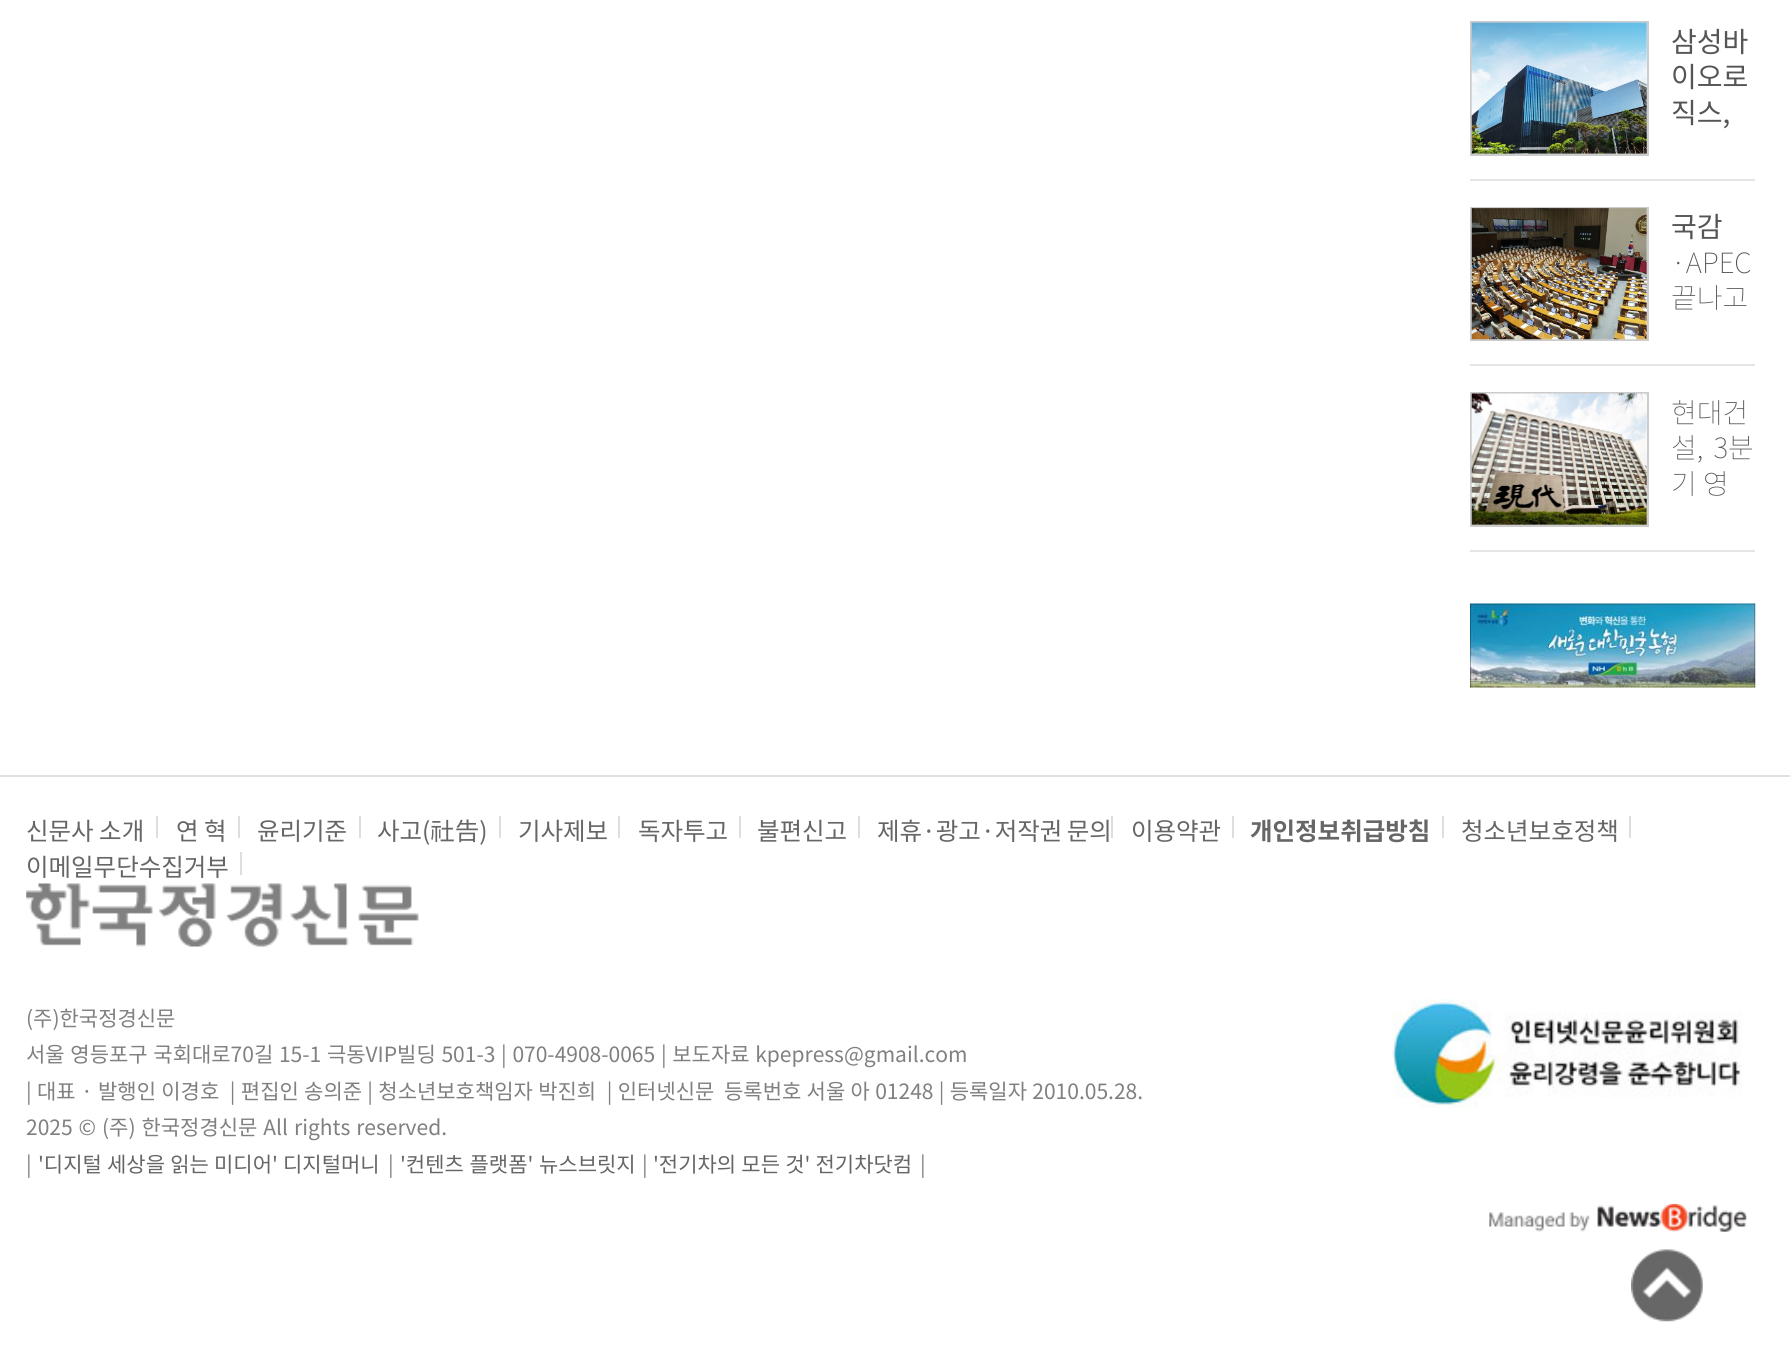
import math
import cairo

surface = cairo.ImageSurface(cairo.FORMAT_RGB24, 1790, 1356)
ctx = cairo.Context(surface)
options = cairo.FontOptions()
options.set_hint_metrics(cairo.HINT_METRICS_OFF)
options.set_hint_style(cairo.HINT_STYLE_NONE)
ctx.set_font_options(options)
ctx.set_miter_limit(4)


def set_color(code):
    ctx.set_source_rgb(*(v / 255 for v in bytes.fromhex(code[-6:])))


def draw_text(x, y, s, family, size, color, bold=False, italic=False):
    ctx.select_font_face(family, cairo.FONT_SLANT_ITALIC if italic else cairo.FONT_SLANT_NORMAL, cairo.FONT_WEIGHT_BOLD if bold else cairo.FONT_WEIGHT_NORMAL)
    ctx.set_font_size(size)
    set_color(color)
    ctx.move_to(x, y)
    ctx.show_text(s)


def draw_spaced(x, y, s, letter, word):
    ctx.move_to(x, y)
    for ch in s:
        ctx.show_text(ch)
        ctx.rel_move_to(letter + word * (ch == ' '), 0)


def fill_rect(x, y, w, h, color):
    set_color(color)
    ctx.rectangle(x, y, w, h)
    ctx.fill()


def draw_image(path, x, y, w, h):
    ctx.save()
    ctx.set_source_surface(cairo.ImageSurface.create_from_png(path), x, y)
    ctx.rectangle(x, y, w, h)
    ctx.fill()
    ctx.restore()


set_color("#ffffff")
ctx.paint()
fill_rect(1470, 179, 285, 2, "#e5e5e5")
ctx.rectangle(1471, 22, 177, 133)
set_color("#cccccc")
ctx.stroke()
draw_image("assets/img1.png", 1471, 22, 176, 132)
draw_text(1671, 52, "삼성바", "Noto Sans KR", 28, "#555555")
draw_text(1671, 87, "이오로", "Noto Sans KR", 28, "#555555")
draw_text(1671, 123, "직스,", "Noto Sans KR", 28, "#555555")
fill_rect(1470, 364, 285, 2, "#e5e5e5")
ctx.rectangle(1471, 208, 177, 132)
set_color("#cccccc")
ctx.stroke()
draw_image("assets/img2.png", 1471, 208, 176, 132)
draw_text(1671, 237, "국감", "Noto Sans KR", 28, "#555555")
draw_text(1671, 273, "·APEC", "Noto Sans KR Thin", 28, "#555555")
draw_text(1671, 308, "끝나고", "Noto Sans KR Thin", 28, "#555555")
fill_rect(1470, 550, 285, 2, "#e5e5e5")
ctx.rectangle(1471, 393, 177, 133)
set_color("#cccccc")
ctx.stroke()
draw_image("assets/img3.png", 1471, 393, 176, 132)
draw_text(1671, 423, "현대건", "Noto Sans KR Thin", 28, "#555555")
draw_spaced(1671, 458, "설, 3분", 0, 4)
draw_text(1671, 494, "기 영", "Noto Sans KR Thin", 28, "#555555")
draw_image("assets/img4.png", 1470, 603, 286, 85)
fill_rect(0, 775, 1790, 2, "#e0e0e0")
draw_text(26, 840, "신문사 소개", "Noto Sans KR", 24.5, "#666666")
fill_rect(156, 816, 2, 22, "#dedede")
draw_text(176, 840, "연 혁", "Noto Sans KR", 24.5, "#666666")
fill_rect(238, 816, 2, 22, "#dedede")
draw_text(257, 840, "윤리기준", "Noto Sans KR", 24.5, "#666666")
fill_rect(359, 816, 2, 22, "#dedede")
draw_text(377, 840, "사고(社告)", "Noto Sans KR", 24.5, "#666666")
fill_rect(499, 816, 2, 22, "#dedede")
draw_text(518, 840, "기사제보", "Noto Sans KR", 24.5, "#666666")
fill_rect(618, 816, 2, 22, "#dedede")
draw_text(638, 840, "독자투고", "Noto Sans KR", 24.5, "#666666")
fill_rect(739, 816, 2, 22, "#dedede")
draw_text(757, 840, "불편신고", "Noto Sans KR", 24.5, "#666666")
fill_rect(858, 816, 2, 22, "#dedede")
set_color("#666666")
draw_spaced(877, 840, "제휴·광고·저작권 문의", 0, -1)
fill_rect(1111, 816, 2, 22, "#dedede")
draw_text(1131, 840, "이용약관", "Noto Sans KR", 24.5, "#666666")
fill_rect(1232, 816, 2, 22, "#dedede")
draw_text(1250, 840, "개인정보취급방침", "Noto Sans KR", 24.5, "#666666", bold=True)
fill_rect(1442, 816, 2, 22, "#dedede")
draw_text(1461, 840, "청소년보호정책", "Noto Sans KR", 24.5, "#666666")
fill_rect(1629, 816, 2, 22, "#dedede")
draw_text(26, 876, "이메일무단수집거부", "Noto Sans KR", 24.5, "#666666")
fill_rect(240, 852, 2, 23, "#dedede")
draw_image("assets/img5.png", 26, 883, 393, 64)
draw_text(26, 1026, "(주)한국정경신문", "Noto Sans KR", 21, "#808080")
draw_spaced(26, 1062, "서울 영등포구 국회대로70길 15-1 극동VIP빌딩 501-3 | 070-4908-0065 | 보도자료 kpepress@gmail.com", 0, 1)
draw_spaced(26, 1099, "| 대표 · 발행인 이경호  | 편집인 송의준 | 청소년보호책임자 박진희  | 인터넷신문", 0, 0.6)
draw_spaced(724, 1099, "등록번호 서울 아 01248 | 등록일자 2010.05.28.", 0, 0.6)
draw_spaced(26, 1135, "2025 © (주) 한국정경신문 All rights reserved.", 0, 1.25)
draw_text(26, 1172, "|", "Noto Sans KR", 21, "#808080")
set_color("#666666")
draw_spaced(38, 1172, "'디지털 세상을 읽는 미디어' 디지털머니", 0, 0.5)
draw_text(388, 1172, "|", "Noto Sans KR", 21, "#808080")
set_color("#666666")
draw_spaced(400, 1172, "'컨텐츠 플랫폼' 뉴스브릿지", 0, 1)
draw_text(642, 1172, "|", "Noto Sans KR", 21, "#808080")
set_color("#666666")
draw_spaced(653, 1172, "'전기차의 모든 것' 전기차닷컴", 0, 0.5)
draw_text(920, 1172, "|", "Noto Sans KR", 21, "#808080")
draw_image("assets/img6.png", 1392, 999, 350, 109)
draw_image("assets/img7.png", 1489, 1203, 258, 29)
draw_image("assets/img8.png", 1631, 1249, 72, 73)
surface.write_to_png("output.png")
